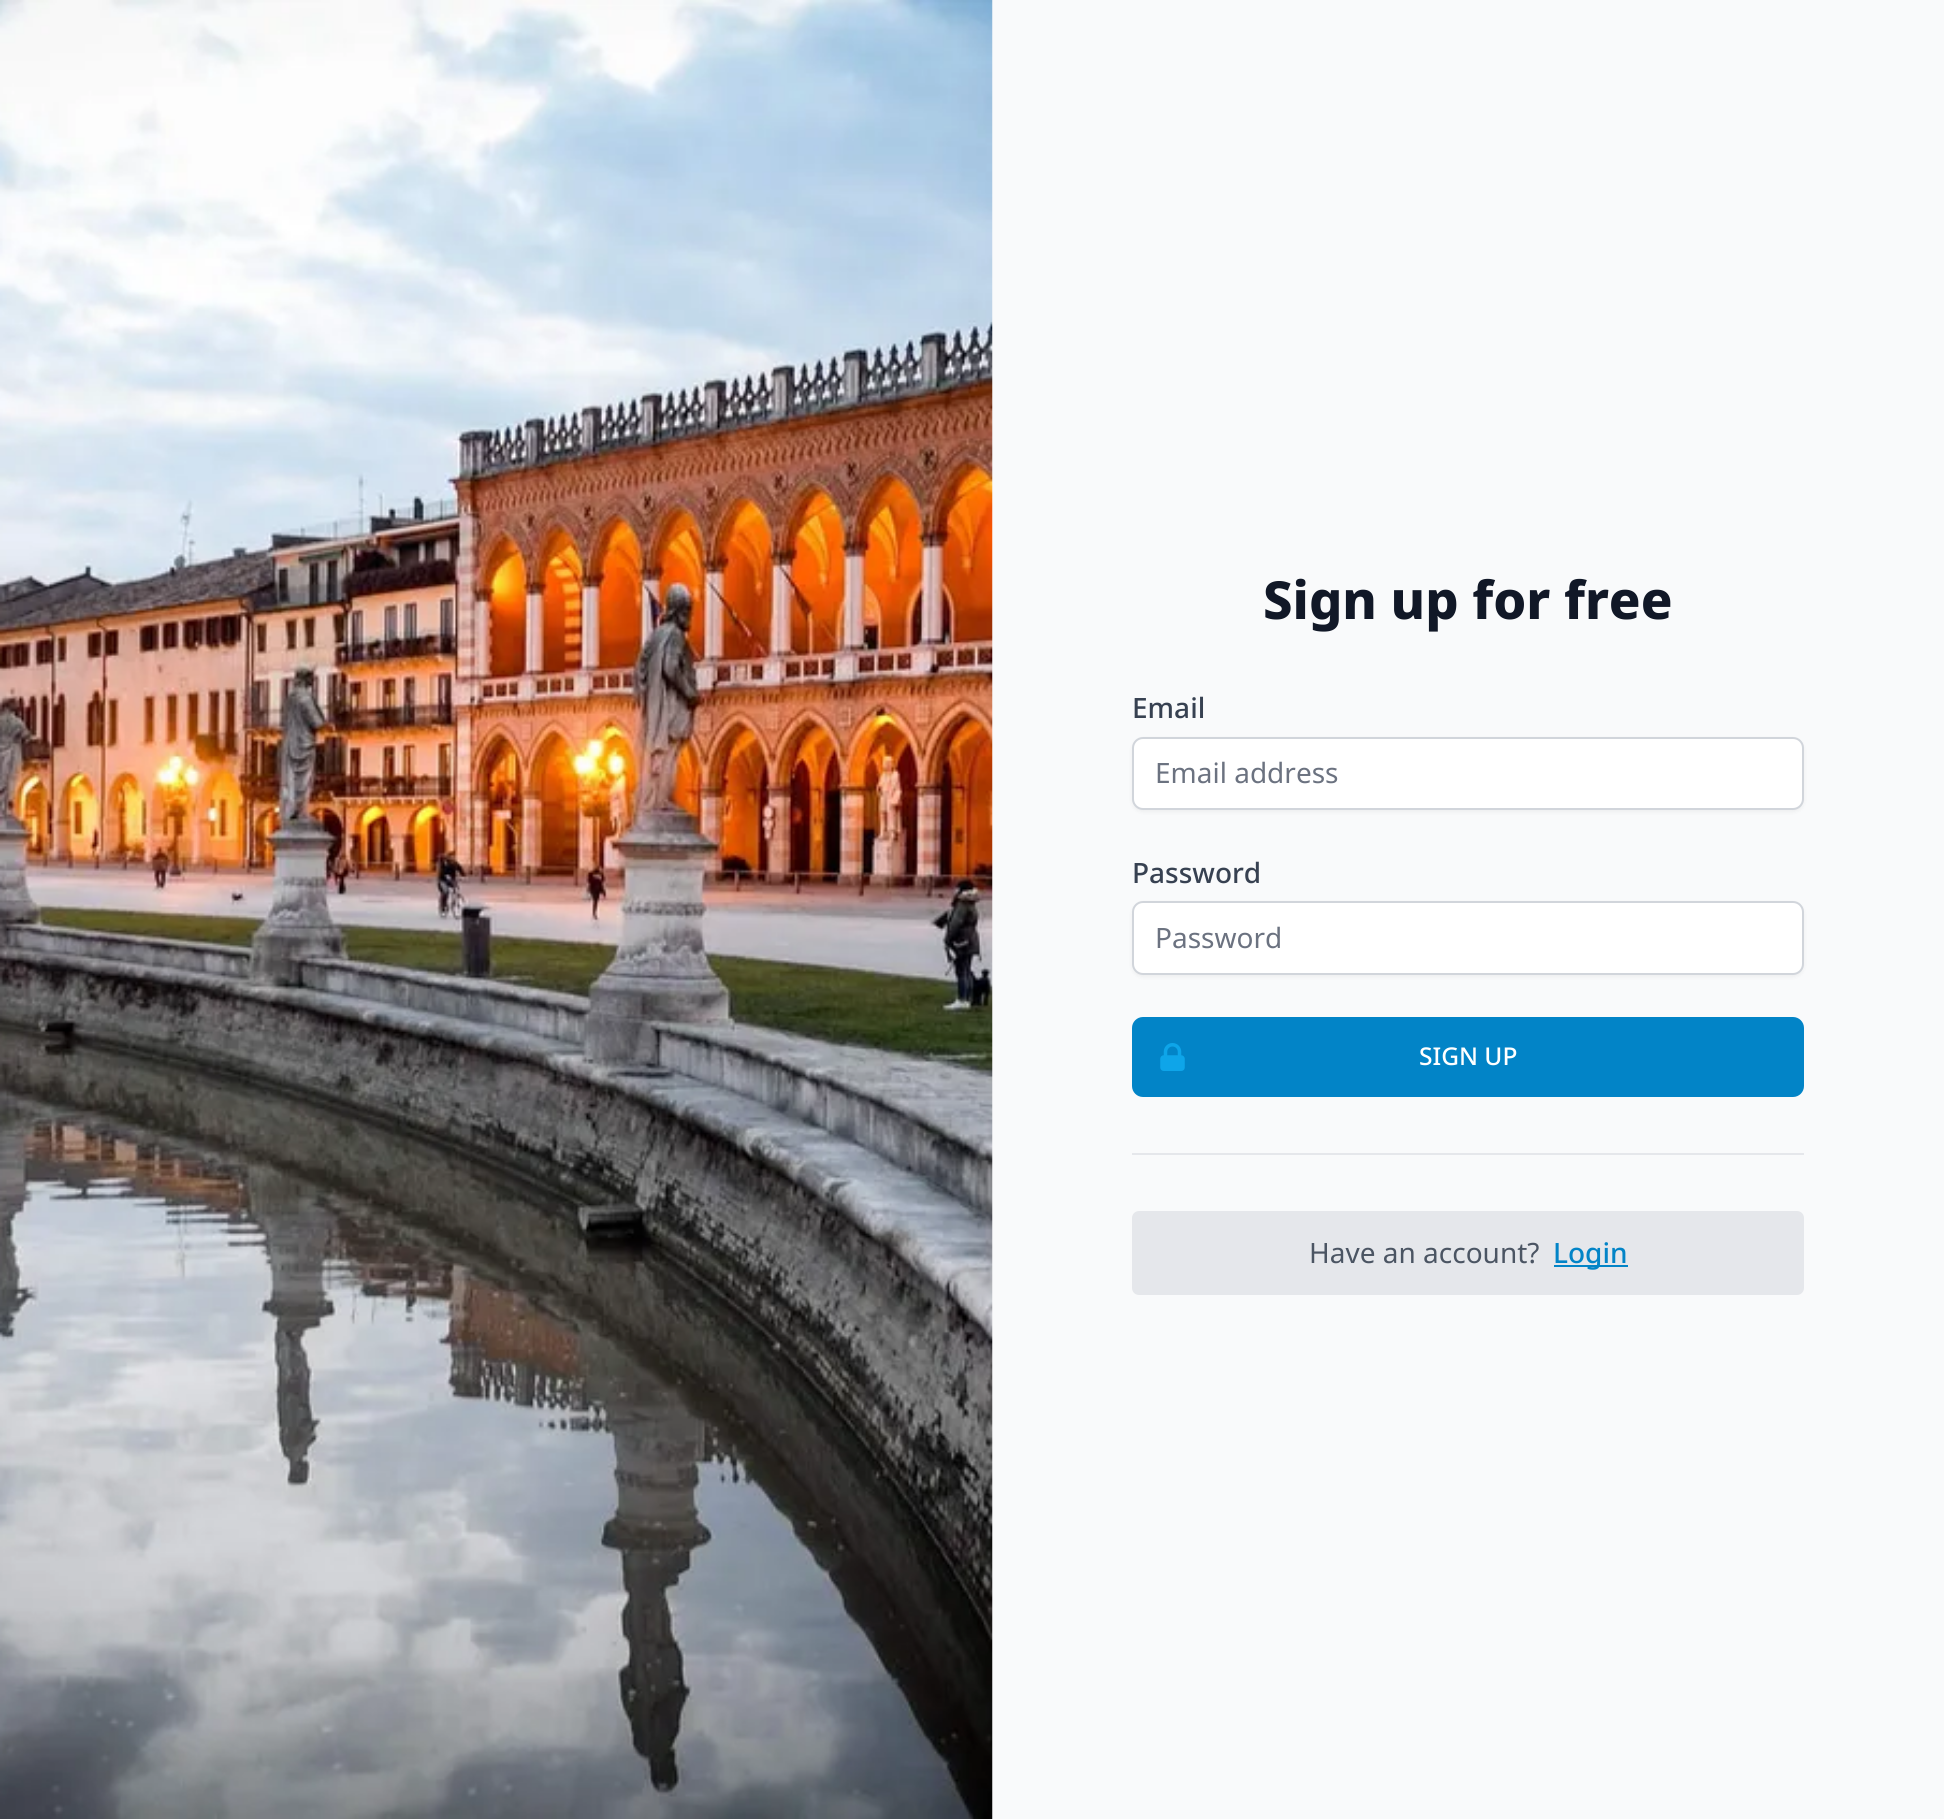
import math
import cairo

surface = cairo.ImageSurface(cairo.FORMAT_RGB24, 1944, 1819)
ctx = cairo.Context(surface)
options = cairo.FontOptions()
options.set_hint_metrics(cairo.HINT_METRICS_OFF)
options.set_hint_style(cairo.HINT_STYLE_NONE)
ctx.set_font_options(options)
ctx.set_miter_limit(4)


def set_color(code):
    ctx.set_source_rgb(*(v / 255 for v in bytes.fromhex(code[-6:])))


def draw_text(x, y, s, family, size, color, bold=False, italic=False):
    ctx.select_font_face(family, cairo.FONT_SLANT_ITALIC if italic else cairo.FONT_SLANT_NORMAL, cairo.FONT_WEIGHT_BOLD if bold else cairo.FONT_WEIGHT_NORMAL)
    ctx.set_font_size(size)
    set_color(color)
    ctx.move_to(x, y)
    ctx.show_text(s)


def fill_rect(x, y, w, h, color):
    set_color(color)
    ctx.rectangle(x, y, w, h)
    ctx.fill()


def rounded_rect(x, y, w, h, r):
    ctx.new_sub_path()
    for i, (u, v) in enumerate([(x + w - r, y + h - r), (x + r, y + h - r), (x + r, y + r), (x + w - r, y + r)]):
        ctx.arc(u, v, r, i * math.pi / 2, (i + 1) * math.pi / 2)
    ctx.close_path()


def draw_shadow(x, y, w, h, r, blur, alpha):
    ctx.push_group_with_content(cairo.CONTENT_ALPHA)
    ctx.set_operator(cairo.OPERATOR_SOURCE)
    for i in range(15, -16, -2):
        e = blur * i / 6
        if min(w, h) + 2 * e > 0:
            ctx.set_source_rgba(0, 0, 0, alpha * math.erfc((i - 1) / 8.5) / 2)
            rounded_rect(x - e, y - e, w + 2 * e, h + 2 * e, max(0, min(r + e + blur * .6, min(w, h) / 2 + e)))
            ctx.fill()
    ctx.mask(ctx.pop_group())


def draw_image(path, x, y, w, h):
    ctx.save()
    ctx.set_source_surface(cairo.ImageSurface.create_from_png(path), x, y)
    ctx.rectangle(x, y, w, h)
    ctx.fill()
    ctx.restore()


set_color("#f9fafb")
ctx.paint()
draw_image("assets/img1.png", 0, 0, 993, 1819)
draw_text(1263, 619, "Sign up for free", "Noto Sans ExtraBold", 52.5, "#111827")
draw_text(1132, 718, "Email", "Noto Sans Medium", 28, "#374151")
set_color("#000000")
draw_shadow(1132, 739, 672, 73, 11, 2, 0.05)
set_color("#ffffff")
rounded_rect(1133, 738, 670, 71, 10)
ctx.fill_preserve()
set_color("#d1d5db")
ctx.stroke()
draw_text(1155, 783, "Email address", "Noto Sans", 28, "#6b7280")
draw_text(1132, 883, "Password", "Noto Sans Medium", 28, "#374151")
set_color("#000000")
draw_shadow(1132, 903, 672, 74, 11, 2, 0.05)
set_color("#ffffff")
rounded_rect(1133, 902, 670, 72, 10)
ctx.fill_preserve()
set_color("#d1d5db")
ctx.stroke()
draw_text(1155, 948, "Password", "Noto Sans", 28, "#6b7280")
set_color("#0284c7")
rounded_rect(1132, 1017, 672, 80, 11)
ctx.fill()
draw_image("assets/img2.png", 1160, 1043, 25, 28)
draw_text(1419, 1065, "SIGN UP", "Noto Sans Medium", 24.5, "#ffffff")
fill_rect(1132, 1153, 672, 2, "#e5e7eb")
rounded_rect(1132, 1211, 672, 84, 7)
ctx.fill()
draw_text(1309, 1263, "Have an account?", "Noto Sans", 28, "#4b5563")
fill_rect(1554, 1265, 74, 2, "#0284c7")
draw_text(1553, 1263, "Login", "Noto Sans Medium", 28, "#0284c7")
surface.write_to_png("output.png")
